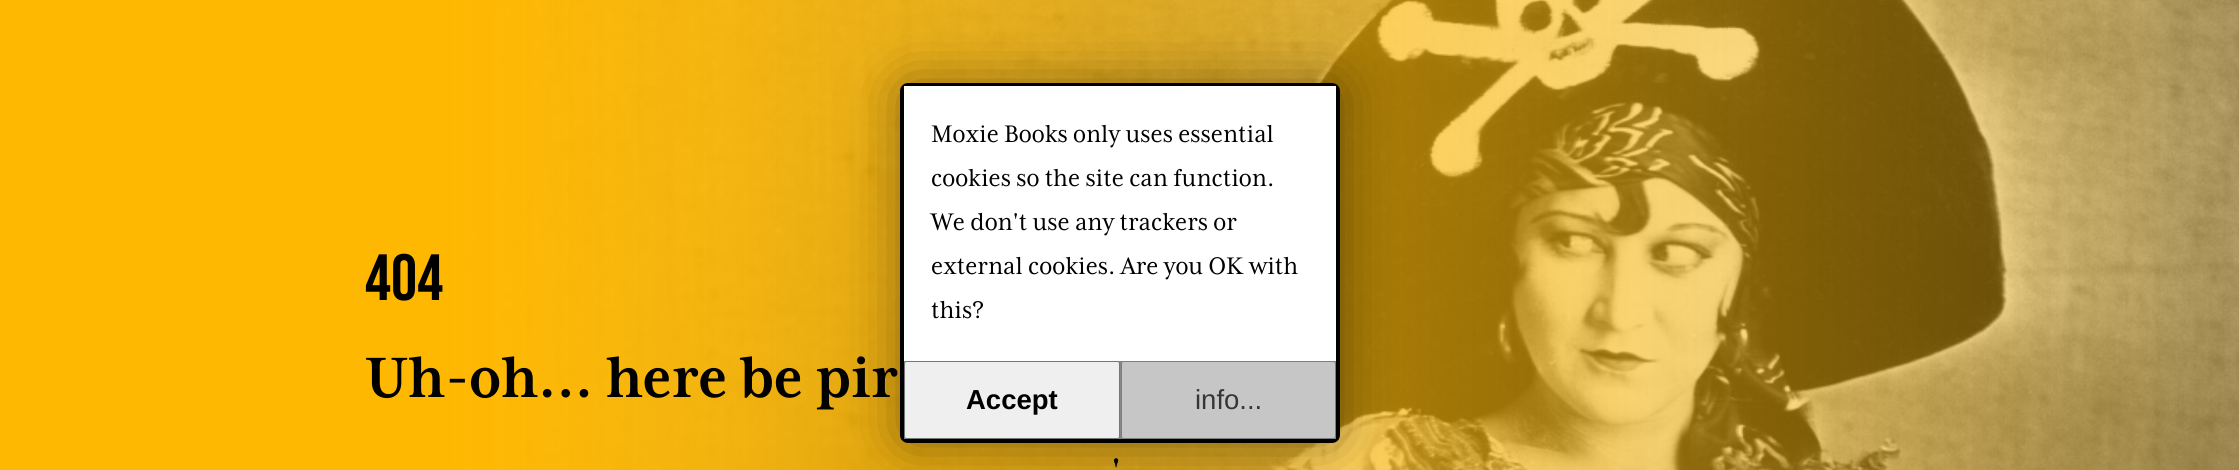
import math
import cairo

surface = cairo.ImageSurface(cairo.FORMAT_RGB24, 2239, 470)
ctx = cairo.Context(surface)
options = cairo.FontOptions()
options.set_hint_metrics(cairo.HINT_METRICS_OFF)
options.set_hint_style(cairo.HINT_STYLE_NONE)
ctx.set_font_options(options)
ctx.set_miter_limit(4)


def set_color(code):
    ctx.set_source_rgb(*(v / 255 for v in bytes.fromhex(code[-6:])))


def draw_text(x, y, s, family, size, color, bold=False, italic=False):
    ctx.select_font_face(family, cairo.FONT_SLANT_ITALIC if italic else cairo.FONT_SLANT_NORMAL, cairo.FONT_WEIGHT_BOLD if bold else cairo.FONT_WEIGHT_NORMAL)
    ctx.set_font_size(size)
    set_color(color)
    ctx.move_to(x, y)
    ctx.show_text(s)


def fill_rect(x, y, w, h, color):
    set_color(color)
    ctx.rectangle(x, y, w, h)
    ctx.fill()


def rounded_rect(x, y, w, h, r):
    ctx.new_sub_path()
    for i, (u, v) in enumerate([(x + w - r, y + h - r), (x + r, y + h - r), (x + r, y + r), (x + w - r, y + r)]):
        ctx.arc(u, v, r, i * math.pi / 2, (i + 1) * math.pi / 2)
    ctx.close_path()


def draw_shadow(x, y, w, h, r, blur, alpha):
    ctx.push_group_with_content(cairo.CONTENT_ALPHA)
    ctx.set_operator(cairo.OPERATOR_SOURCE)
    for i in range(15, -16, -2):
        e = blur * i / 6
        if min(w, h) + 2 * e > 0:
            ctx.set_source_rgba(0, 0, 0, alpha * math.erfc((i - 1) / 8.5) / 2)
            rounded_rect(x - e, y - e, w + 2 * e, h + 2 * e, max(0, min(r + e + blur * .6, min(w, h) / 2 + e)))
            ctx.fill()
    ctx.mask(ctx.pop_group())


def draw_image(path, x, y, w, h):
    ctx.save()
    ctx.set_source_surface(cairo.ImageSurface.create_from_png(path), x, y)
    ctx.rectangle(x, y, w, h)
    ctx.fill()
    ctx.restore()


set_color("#ffffff")
ctx.paint()
draw_image("assets/img1.png", 463, 0, 1776, 470)
gradient = cairo.LinearGradient(0, 235, 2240, 235)
gradient.add_color_stop_rgba(0.2, 1, 0.722, 0.004, 1)
gradient.add_color_stop_rgba(1, 1, 0.722, 0.004, 0.3)
ctx.set_source(gradient)
ctx.rectangle(0, 0, 2239, 470)
ctx.fill()
set_color("#000000")
draw_shadow(900, 83, 440, 360, 8, 27.5, 0.4)
rounded_rect(902, 85, 436, 356, 6)
set_color("#000000")
ctx.set_line_width(4)
ctx.stroke()
fill_rect(904, 86, 432, 275, "#ffffff")
draw_text(931, 142, "Moxie Books only uses essential", "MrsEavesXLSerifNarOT", 27.5, "#000000")
draw_text(931, 186, "cookies so the site can function.", "MrsEavesXLSerifNarOT", 27.5, "#000000")
draw_text(931, 230, "We don't use any trackers or", "MrsEavesXLSerifNarOT", 27.5, "#000000")
draw_text(931, 274, "external cookies. Are you OK with", "MrsEavesXLSerifNarOT", 27.5, "#000000")
draw_text(931, 318, "this?", "MrsEavesXLSerifNarOT", 27.5, "#000000")
fill_rect(904, 361, 432, 78, "#888888")
set_color("#efefef")
rounded_rect(904.5, 361.5, 215, 77, 2)
ctx.fill_preserve()
set_color("#767676")
ctx.set_line_width(1)
ctx.stroke()
draw_text(966, 409, "Accept", "Liberation Sans", 27.5, "#000000", bold=True)
set_color("#c6c6c6")
rounded_rect(1121.5, 361.5, 214, 77, 2)
ctx.fill_preserve()
set_color("#7d7d7d")
ctx.stroke()
draw_text(1195, 409, "info...", "Liberation Sans", 27.5, "#363636")
draw_text(365, 300, "404", "Bebas Neue", 65.25, "#000000", bold=True)
draw_text(365, 397, "Uh-oh... here be pir", "MrsEavesXLSerifNarOT", 65.25, "#000000", bold=True)
draw_text(1112, 481, "'", "MrsEavesXLSerifNarOT", 37, "#000000", bold=True)
surface.write_to_png("output.png")
